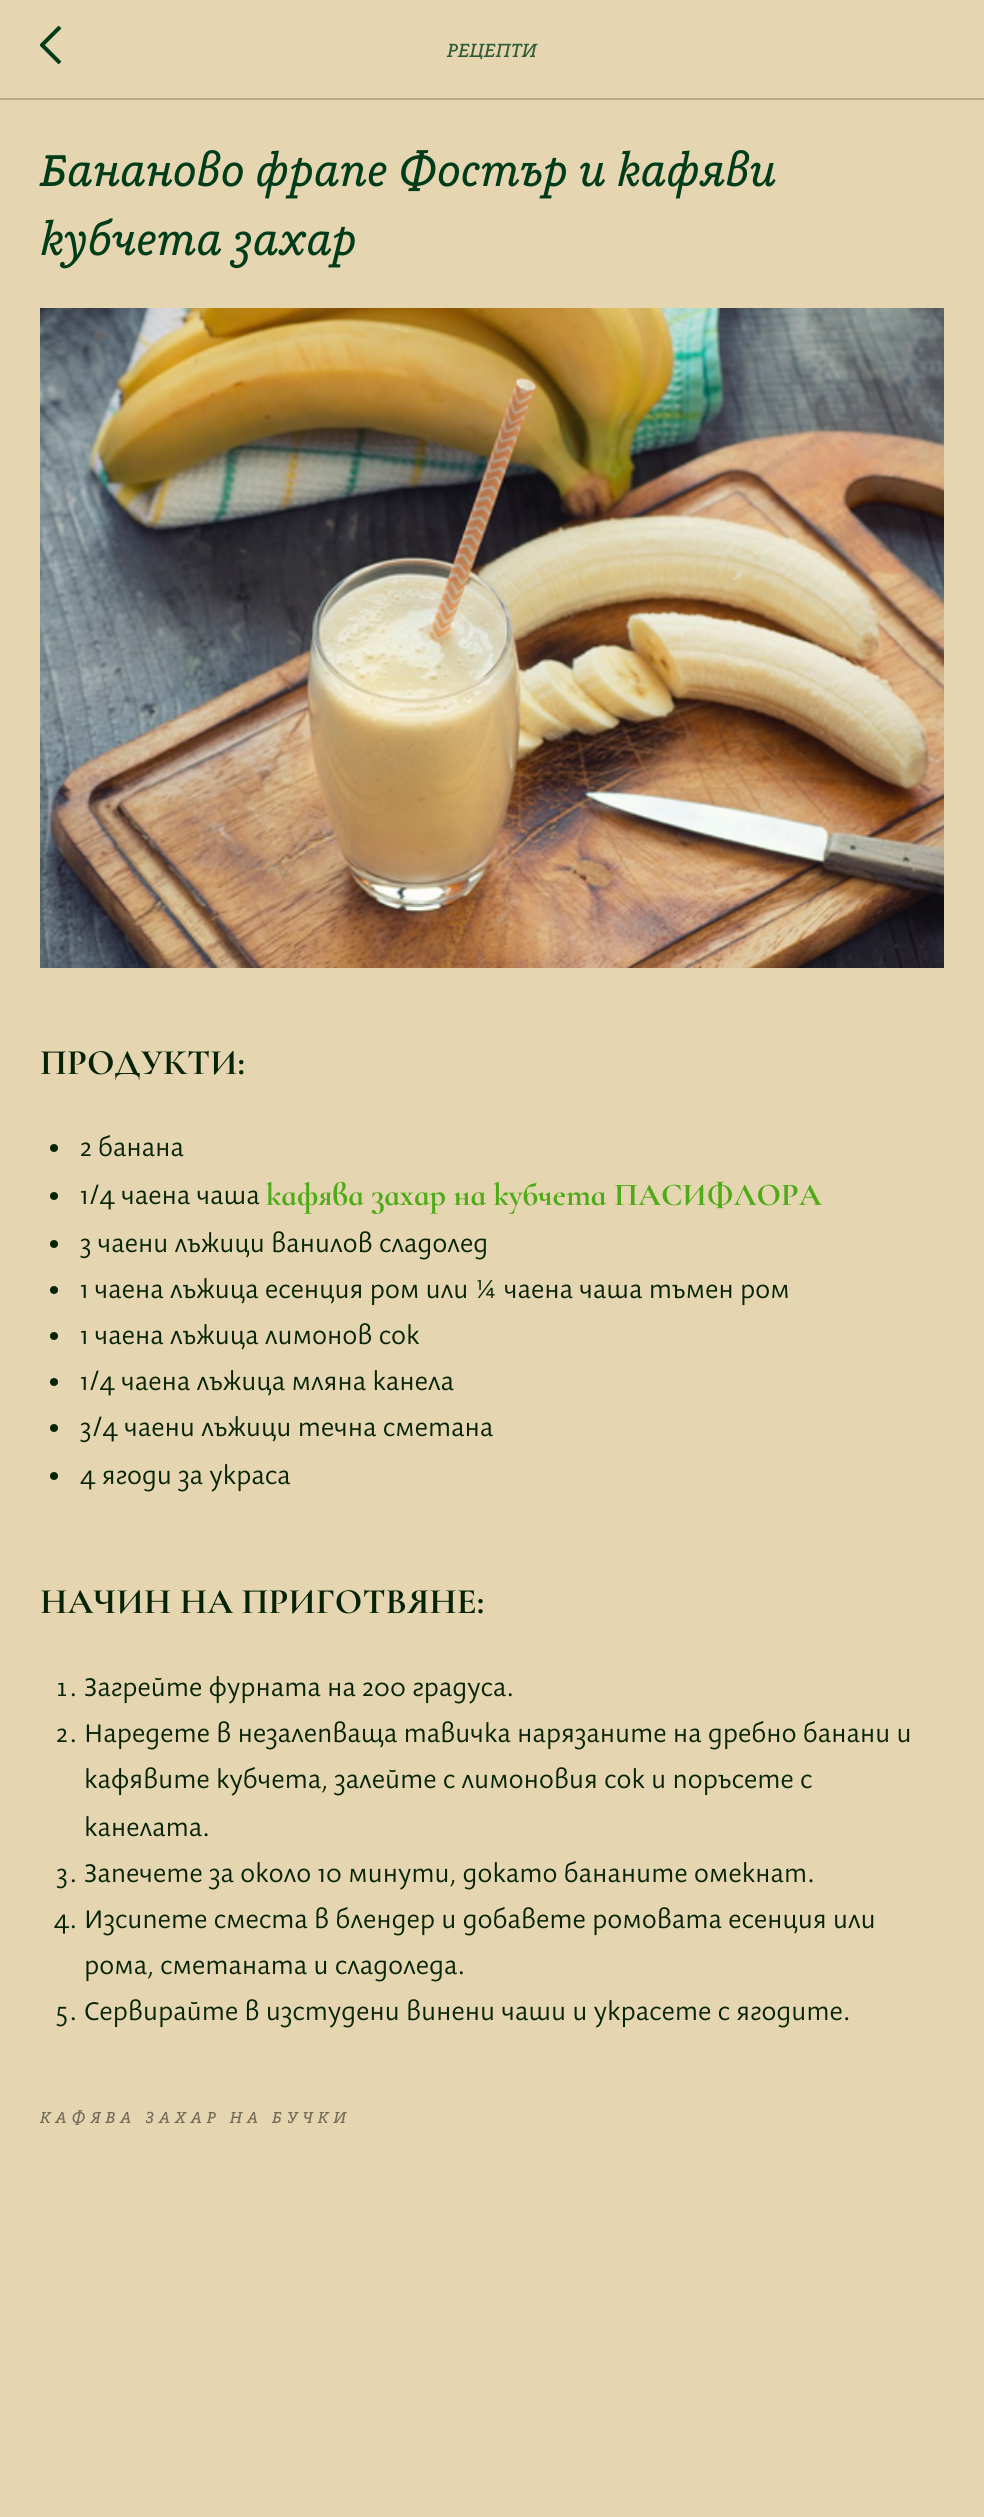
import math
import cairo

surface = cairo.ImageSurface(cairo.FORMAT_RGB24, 984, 2517)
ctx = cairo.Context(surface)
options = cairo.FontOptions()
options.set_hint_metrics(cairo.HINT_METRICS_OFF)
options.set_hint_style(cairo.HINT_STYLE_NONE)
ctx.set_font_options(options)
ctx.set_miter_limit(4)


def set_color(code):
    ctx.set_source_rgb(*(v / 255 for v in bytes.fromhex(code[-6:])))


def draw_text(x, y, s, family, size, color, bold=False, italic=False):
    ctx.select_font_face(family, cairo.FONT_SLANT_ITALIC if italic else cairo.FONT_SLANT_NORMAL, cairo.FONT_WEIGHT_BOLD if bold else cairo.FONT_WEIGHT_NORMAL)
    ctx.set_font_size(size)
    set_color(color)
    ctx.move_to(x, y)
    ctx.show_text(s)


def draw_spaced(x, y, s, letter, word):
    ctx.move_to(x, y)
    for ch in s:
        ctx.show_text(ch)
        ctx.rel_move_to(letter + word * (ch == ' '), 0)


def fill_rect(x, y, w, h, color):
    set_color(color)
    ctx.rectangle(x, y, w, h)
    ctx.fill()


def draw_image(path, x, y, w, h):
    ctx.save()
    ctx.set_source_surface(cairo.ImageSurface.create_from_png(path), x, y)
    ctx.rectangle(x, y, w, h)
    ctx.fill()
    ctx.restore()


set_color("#e5d5b0")
ctx.paint()
fill_rect(0, 98, 984, 2, "#b7aa8d")
ctx.save()
ctx.rectangle(40, 26, 22, 40)
ctx.clip()
ctx.new_path()
ctx.move_to(60, 63)
ctx.line_to(42, 45)
ctx.line_to(60, 27)
set_color("#003c1a")
ctx.set_line_width(4)
ctx.stroke()
ctx.restore()
draw_text(447, 57, "РЕЦЕПТИ", "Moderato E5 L", 24, "#2e5b38", italic=True)
draw_text(40, 186, "Бананово фрапе Фостър и кафяви", "Moderato E5 L", 56, "#003c1a", italic=True)
draw_text(40, 255, "кубчета захар", "Moderato E5 L", 56, "#003c1a", italic=True)
draw_image("assets/img1.png", 40, 308, 904, 660)
draw_text(40, 1074, "ПРОДУКТИ:", "Cormorant Infant", 36, "#062405", bold=True)
ctx.new_path()
ctx.arc(54, 1148, 4, 0, 2 * math.pi)
ctx.fill()
draw_image("assets/img2.png", 81, 1134, 103, 23)
ctx.arc(54, 1196, 4, 0, 2 * math.pi)
ctx.fill()
draw_image("assets/img3.png", 80, 1184, 180, 26)
draw_text(266, 1205, "кафява захар на кубчета ПАСИФЛОРА", "Cormorant Infant", 32, "#4eab18", bold=True)
set_color("#062405")
ctx.new_path()
ctx.arc(54, 1244, 4, 0, 2 * math.pi)
ctx.fill()
draw_image("assets/img4.png", 80, 1231, 406, 29)
ctx.arc(54, 1290, 4, 0, 2 * math.pi)
ctx.fill()
draw_image("assets/img5.png", 80, 1278, 708, 28)
ctx.arc(54, 1336, 4, 0, 2 * math.pi)
ctx.fill()
draw_image("assets/img6.png", 80, 1323, 339, 27)
ctx.arc(54, 1382, 4, 0, 2 * math.pi)
ctx.fill()
draw_image("assets/img7.png", 80, 1370, 374, 26)
ctx.arc(54, 1428, 4, 0, 2 * math.pi)
ctx.fill()
draw_image("assets/img8.png", 80, 1416, 413, 27)
ctx.arc(54, 1476, 4, 0, 2 * math.pi)
ctx.fill()
draw_image("assets/img9.png", 80, 1464, 211, 28)
draw_text(40, 1613, "НАЧИН НА ПРИГОТВЯНЕ:", "Cormorant Infant", 36, "#062405", bold=True)
draw_image("assets/img10.png", 58, 1682, 17, 15)
draw_image("assets/img11.png", 85, 1676, 427, 28)
draw_image("assets/img12.png", 57, 1728, 18, 15)
draw_image("assets/img13.png", 86, 1720, 824, 30)
draw_image("assets/img14.png", 86, 1766, 726, 30)
draw_image("assets/img15.png", 86, 1816, 122, 21)
draw_image("assets/img16.png", 56, 1868, 19, 21)
draw_image("assets/img17.png", 85, 1860, 728, 30)
draw_image("assets/img18.png", 54, 1914, 21, 20)
draw_image("assets/img19.png", 86, 1907, 788, 29)
draw_image("assets/img20.png", 86, 1960, 377, 22)
draw_image("assets/img21.png", 56, 2006, 19, 21)
draw_image("assets/img22.png", 85, 1999, 764, 29)
ctx.select_font_face("Moderato E5 L", cairo.FONT_SLANT_ITALIC)
ctx.set_font_size(20)
set_color("#736b58")
draw_spaced(40, 2123, "КАФЯВА ЗАХАР НА БУЧКИ", 5, 0)
surface.write_to_png("output.png")
